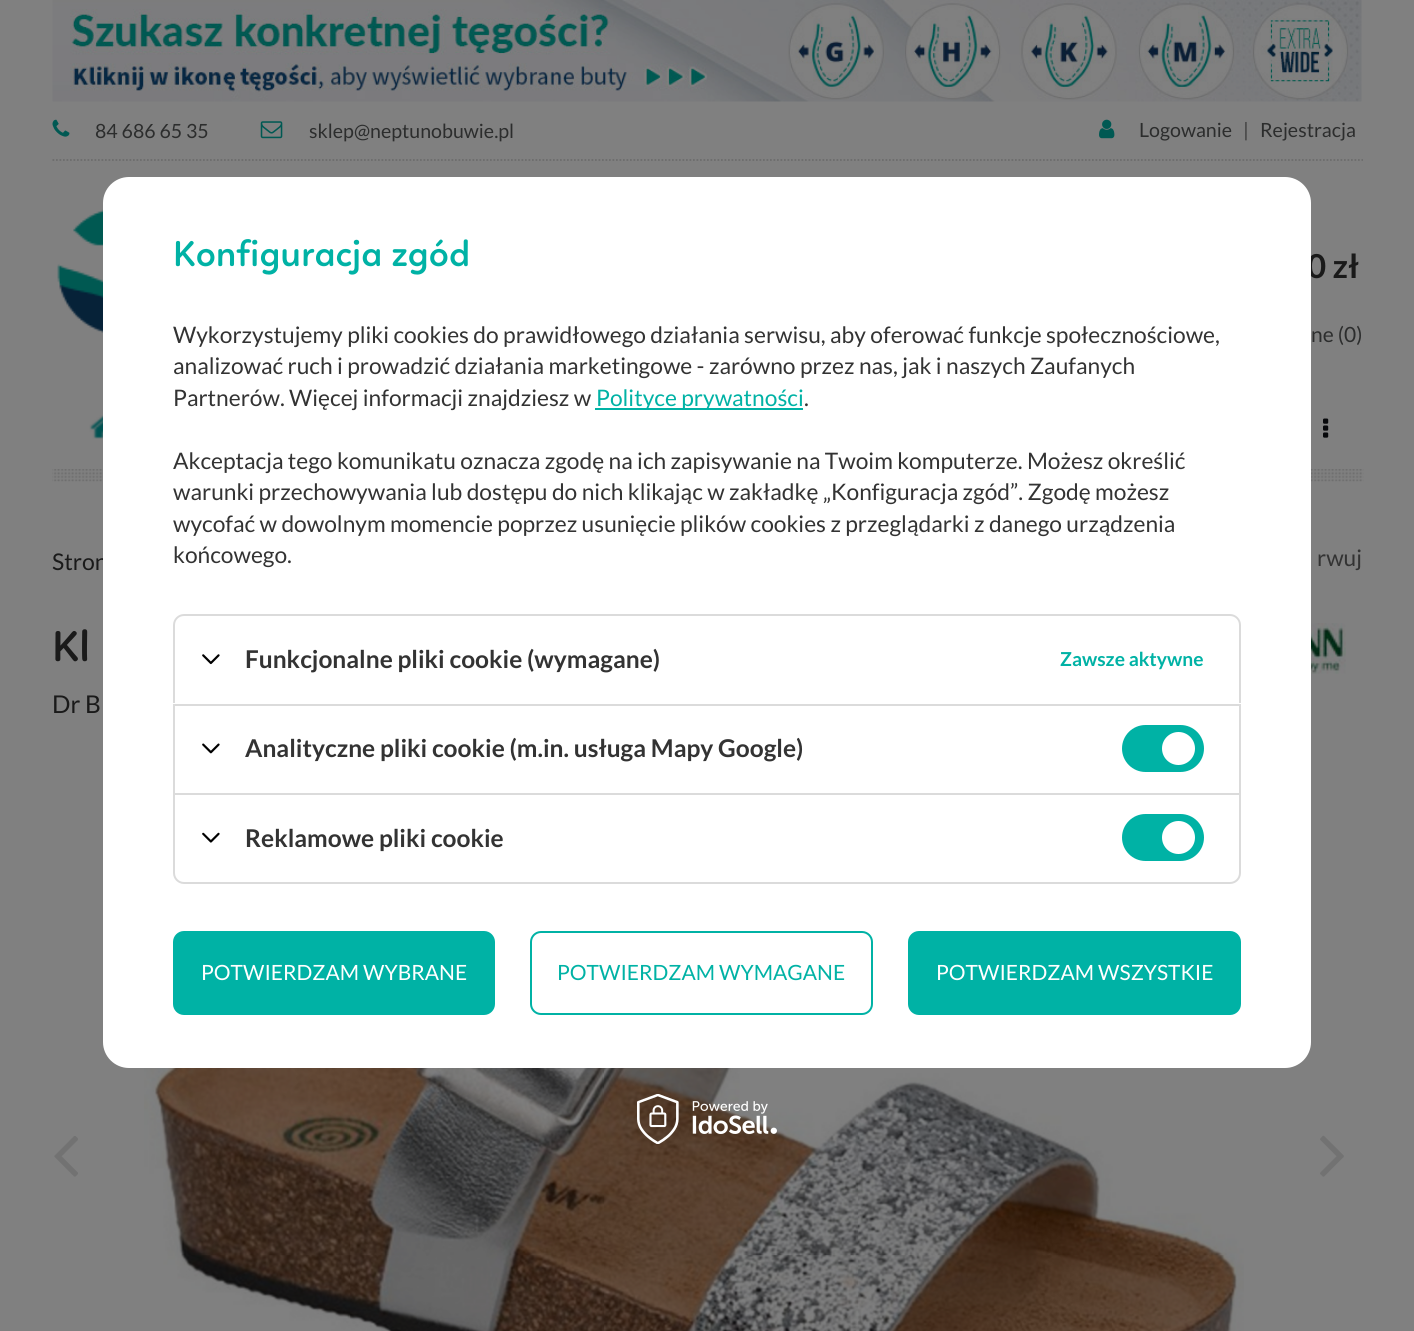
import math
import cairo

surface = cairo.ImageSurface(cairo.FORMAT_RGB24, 1414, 1331)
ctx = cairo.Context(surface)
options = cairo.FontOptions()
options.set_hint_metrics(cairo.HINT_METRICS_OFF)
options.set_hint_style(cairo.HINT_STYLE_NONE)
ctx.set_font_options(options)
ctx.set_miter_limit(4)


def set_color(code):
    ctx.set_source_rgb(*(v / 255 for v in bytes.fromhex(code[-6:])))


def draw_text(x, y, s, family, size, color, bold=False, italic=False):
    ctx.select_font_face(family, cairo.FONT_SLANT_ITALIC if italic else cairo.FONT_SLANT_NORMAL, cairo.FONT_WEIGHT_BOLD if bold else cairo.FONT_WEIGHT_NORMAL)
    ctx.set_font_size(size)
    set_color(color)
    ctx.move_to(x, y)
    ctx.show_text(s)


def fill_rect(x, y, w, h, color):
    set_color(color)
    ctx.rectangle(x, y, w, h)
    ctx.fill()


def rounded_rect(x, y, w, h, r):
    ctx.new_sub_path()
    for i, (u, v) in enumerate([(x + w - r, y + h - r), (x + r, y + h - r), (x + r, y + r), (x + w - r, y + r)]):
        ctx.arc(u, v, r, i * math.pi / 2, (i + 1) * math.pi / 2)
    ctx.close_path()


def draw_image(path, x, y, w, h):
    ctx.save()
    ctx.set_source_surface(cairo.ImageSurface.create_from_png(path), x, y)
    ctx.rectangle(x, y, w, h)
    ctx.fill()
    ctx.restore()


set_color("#808080")
ctx.paint()
draw_image("assets/img1.png", 52, 0, 1310, 102)
ctx.new_path()
ctx.move_to(52.5, 160)
ctx.line_to(1363, 160)
set_color("#6c6c6c")
ctx.set_line_width(1.8)
ctx.set_dash([1.75, 1.75])
ctx.stroke()
draw_image("assets/img2.png", 52, 119, 18, 18)
draw_text(95, 138, "84 686 65 35", "Lato", 19.6, "#2c2d2d")
draw_image("assets/img3.png", 260, 121, 23, 18)
draw_text(309, 138, "sklep@neptunobuwie.pl", "Lato", 19.6, "#2c2d2d")
draw_image("assets/img4.png", 1099, 119, 16, 20)
draw_text(1139, 137, "Logowanie", "Lato", 19.6, "#2c2d2d")
draw_text(1243, 137, "|", "Lato", 19.6, "#3d3d3d")
draw_text(1260, 137, "Rejestracja", "Lato", 19.6, "#2c2d2d")
draw_image("assets/img5.png", 57, 209, 46, 124)
draw_text(1307, 278, "0 zł", "Lato", 33, "#1a1a1a", bold=True)
draw_text(1311, 342, "ne (0)", "Lato", 21, "#2c2d2d")
draw_image("assets/img6.png", 89, 415, 14, 24)
draw_image("assets/img7.png", 1323, 418, 6, 20)
draw_image("assets/img8.png", 52, 469, 1312, 13)
draw_text(1317, 566, "rwuj", "Lato", 22.75, "#333333")
draw_text(52, 661, "Kl", "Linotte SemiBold", 44, "#1a1a1a")
draw_image("assets/img9.png", 1311, 623, 35, 51)
draw_text(52, 713, "Dr B", "Lato", 24.5, "#1a1a1a")
draw_image("assets/img10.png", 54, 1136, 24, 41)
draw_image("assets/img11.png", 144, 1068, 1100, 263)
draw_image("assets/img12.png", 1320, 1135, 24, 42)
draw_text(52, 570, "Stron", "Lato", 23, "#1a1a1a")
set_color("#ffffff")
rounded_rect(103, 177, 1208, 891, 26)
ctx.fill()
draw_text(173, 266, "Konfiguracja zgód", "Linotte SemiBold", 36.75, "#00b2a5")
draw_text(173, 343, "Wykorzystujemy pliki cookies do prawidłowego działania serwisu, aby oferować funkcje społecznościowe,", "Lato", 22.75, "#333333")
draw_text(173, 374, "analizować ruch i prowadzić działania marketingowe - zarówno przez nas, jak i naszych Zaufanych", "Lato", 22.75, "#333333")
draw_text(173, 406, "Partnerów. Więcej informacji znajdziesz w", "Lato", 22.75, "#333333")
fill_rect(595, 408, 208, 2, "#00b2a5")
draw_text(596, 406, "Polityce prywatności", "Lato", 22.75, "#00b2a5")
draw_text(804, 406, ".", "Lato", 22.75, "#333333")
draw_text(173, 469, "Akceptacja tego komunikatu oznacza zgodę na ich zapisywanie na Twoim komputerze. Możesz określić", "Lato", 22.75, "#333333")
draw_text(173, 500, "warunki przechowywania lub dostępu do nich klikając w zakładkę „Konfiguracja zgód”. Zgodę możesz", "Lato", 22.75, "#333333")
draw_text(173, 532, "wycofać w dowolnym momencie poprzez usunięcie plików cookies z przeglądarki z danego urządzenia", "Lato", 22.75, "#333333")
draw_text(173, 563, "końcowego.", "Lato", 22.75, "#333333")
set_color("#dbdbdb")
ctx.set_fill_rule(cairo.FILL_RULE_EVEN_ODD)
ctx.new_path()
ctx.move_to(184, 614)
ctx.line_to(1230, 614)
ctx.curve_to(1236, 614, 1241, 619, 1241, 625)
ctx.line_to(1241, 703)
ctx.line_to(173, 703)
ctx.line_to(173, 625)
ctx.curve_to(173, 619, 178, 614, 184, 614)
ctx.close_path()
ctx.move_to(184, 616)
ctx.line_to(1230, 616)
ctx.curve_to(1235, 616, 1239, 620, 1239, 625)
ctx.line_to(1239, 703)
ctx.line_to(175, 703)
ctx.line_to(175, 625)
ctx.curve_to(175, 620, 179, 616, 184, 616)
ctx.close_path()
ctx.fill()
draw_image("assets/img13.png", 202, 654, 18, 11)
draw_text(245, 668, "Funkcjonalne pliki cookie (wymagane)", "Lato", 24.5, "#333333", bold=True)
draw_text(1060, 666, "Zawsze aktywne", "Lato", 19.25, "#00b2a5", bold=True)
fill_rect(173, 704, 1068, 2, "#dbdbdb")
fill_rect(1239, 704, 2, 89, "#dbdbdb")
fill_rect(173, 704, 2, 89, "#dbdbdb")
draw_image("assets/img14.png", 202, 743, 18, 11)
draw_text(245, 757, "Analityczne pliki cookie (m.in. usługa Mapy Google)", "Lato", 24.5, "#333333", bold=True)
set_color("#00b2a5")
rounded_rect(1122, 725, 82, 47, 23.5)
ctx.fill()
set_color("#ffffff")
ctx.arc(1178.5, 748.5, 16.5, 0, 2 * math.pi)
ctx.fill()
ctx.new_path()
ctx.move_to(174, 794)
ctx.line_to(1240, 794)
ctx.line_to(1240, 873)
ctx.curve_to(1240, 878.5, 1235.5, 883, 1230, 883)
ctx.line_to(184, 883)
ctx.curve_to(178.5, 883, 174, 878.5, 174, 873)
ctx.close_path()
set_color("#dbdbdb")
ctx.set_line_width(2)
ctx.set_dash([])
ctx.stroke()
draw_image("assets/img15.png", 202, 832, 18, 11)
draw_text(245, 847, "Reklamowe pliki cookie", "Lato", 24.5, "#333333", bold=True)
set_color("#00b2a5")
rounded_rect(1122, 814, 82, 47, 23.5)
ctx.fill()
set_color("#ffffff")
ctx.arc(1178.5, 837.5, 16.5, 0, 2 * math.pi)
ctx.fill()
set_color("#00b2a5")
rounded_rect(174, 932, 320, 82, 10)
ctx.fill_preserve()
ctx.stroke()
draw_text(201, 980, "POTWIERDZAM WYBRANE", "Lato", 21, "#ffffff")
rounded_rect(531, 932, 341, 82, 10)
set_color("#00b2a5")
ctx.stroke()
draw_text(557, 980, "POTWIERDZAM WYMAGANE", "Lato", 21, "#00b2a5")
rounded_rect(909, 932, 331, 82, 10)
ctx.fill_preserve()
ctx.stroke()
draw_text(936, 980, "POTWIERDZAM WSZYSTKIE", "Lato", 21, "#ffffff")
draw_image("assets/img16.png", 637, 1094, 140, 50)
surface.write_to_png("output.png")
